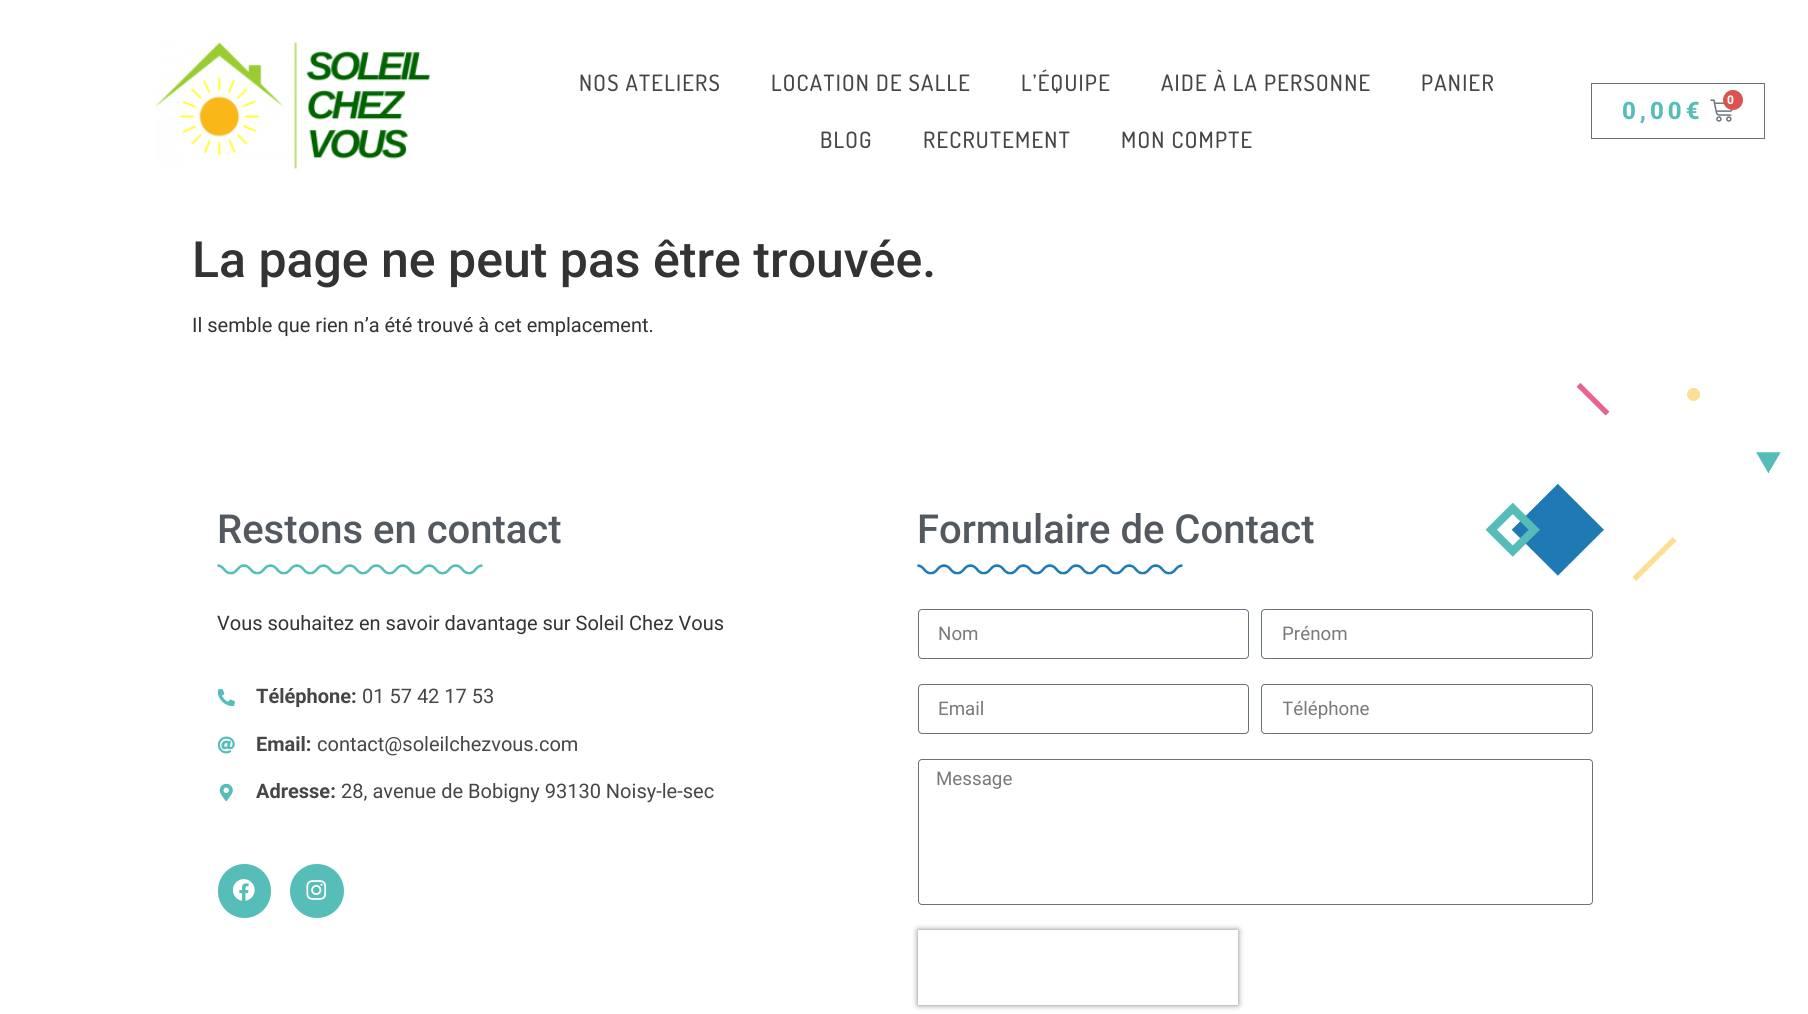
import math
import cairo

surface = cairo.ImageSurface(cairo.FORMAT_RGB24, 1808, 1014)
ctx = cairo.Context(surface)
options = cairo.FontOptions()
options.set_hint_metrics(cairo.HINT_METRICS_OFF)
options.set_hint_style(cairo.HINT_STYLE_NONE)
ctx.set_font_options(options)
ctx.set_miter_limit(4)


def set_color(code):
    ctx.set_source_rgb(*(v / 255 for v in bytes.fromhex(code[-6:])))


def draw_text(x, y, s, family, size, color, bold=False, italic=False):
    ctx.select_font_face(family, cairo.FONT_SLANT_ITALIC if italic else cairo.FONT_SLANT_NORMAL, cairo.FONT_WEIGHT_BOLD if bold else cairo.FONT_WEIGHT_NORMAL)
    ctx.set_font_size(size)
    set_color(color)
    ctx.move_to(x, y)
    ctx.show_text(s)


def draw_spaced(x, y, s, letter, word):
    ctx.move_to(x, y)
    for ch in s:
        ctx.show_text(ch)
        ctx.rel_move_to(letter + word * (ch == ' '), 0)


def rounded_rect(x, y, w, h, r):
    ctx.new_sub_path()
    for i, (u, v) in enumerate([(x + w - r, y + h - r), (x + r, y + h - r), (x + r, y + r), (x + w - r, y + r)]):
        ctx.arc(u, v, r, i * math.pi / 2, (i + 1) * math.pi / 2)
    ctx.close_path()


def draw_shadow(x, y, w, h, r, blur, alpha):
    ctx.push_group_with_content(cairo.CONTENT_ALPHA)
    ctx.set_operator(cairo.OPERATOR_SOURCE)
    for i in range(15, -16, -2):
        e = blur * i / 6
        if min(w, h) + 2 * e > 0:
            ctx.set_source_rgba(0, 0, 0, alpha * math.erfc((i - 1) / 8.5) / 2)
            rounded_rect(x - e, y - e, w + 2 * e, h + 2 * e, max(0, min(r + e + blur * .6, min(w, h) / 2 + e)))
            ctx.fill()
    ctx.mask(ctx.pop_group())


def draw_image(path, x, y, w, h):
    ctx.save()
    ctx.set_source_surface(cairo.ImageSurface.create_from_png(path), x, y)
    ctx.rectangle(x, y, w, h)
    ctx.fill()
    ctx.restore()


set_color("#ffffff")
ctx.paint()
draw_image("assets/img1.png", 155, 42, 275, 128)
ctx.select_font_face("Dosis Medium")
ctx.set_font_size(22.5)
set_color("#464646")
draw_spaced(579, 91, "NOS ATELIERS", 1.25, 0)
draw_spaced(771, 91, "LOCATION DE SALLE", 1.25, 0)
draw_spaced(1021, 91, "L’ÉQUIPE", 1.25, 0)
draw_spaced(1161, 91, "AIDE À LA PERSONNE", 1.25, 0)
draw_spaced(1421, 91, "PANIER", 1.25, 0)
draw_spaced(820, 148, "BLOG", 1.25, 0)
draw_spaced(923, 148, "RECRUTEMENT", 1.25, 0)
draw_spaced(1121, 148, "MON COMPTE", 1.25, 0)
ctx.rectangle(1591.5, 83.5, 173, 55)
set_color("#69727d")
ctx.set_line_width(1)
ctx.stroke()
draw_image("assets/img2.png", 1710, 99, 23, 23)
set_color("#d9534f")
ctx.arc(1733, 100, 10, 0, 2 * math.pi)
ctx.fill()
ctx.select_font_face("Roboto ExtraBold")
ctx.set_font_size(12)
set_color("#ffffff")
draw_spaced(1727, 104, "0", 4, 0)
ctx.set_font_size(24)
set_color("#57bdb9")
draw_spaced(1622, 119, "0,00€", 4, 0)
draw_text(192, 277, "La page ne peut pas être trouvée.", "Roboto Medium", 50, "#333333")
draw_text(192, 332, "Il semble que rien n’a été trouvé à cet emplacement.", "Roboto", 20, "#333333")
draw_image("assets/img3.png", 1485, 383, 296, 198)
draw_text(217, 543, "Restons en contact", "Roboto Medium", 40, "#54595f")
draw_image("assets/img4.png", 217, 564, 266, 11)
draw_text(217, 630, "Vous souhaitez en savoir davantage sur Soleil Chez Vous", "Roboto", 20, "#333333")
draw_image("assets/img5.png", 218, 689, 17, 17)
draw_text(256, 703, "Téléphone:", "Roboto", 20, "#464646", bold=True)
draw_text(362, 703, "01 57 42 17 53", "Roboto", 20, "#464646")
draw_image("assets/img6.png", 218, 736, 17, 18)
draw_text(256, 751, "Email:", "Roboto", 20, "#464646", bold=True)
draw_text(317, 751, "contact@soleilchezvous.com", "Roboto", 20, "#464646")
draw_image("assets/img7.png", 219, 784, 14, 17)
draw_text(256, 798, "Adresse:", "Roboto", 20, "#464646", bold=True)
draw_text(341, 798, "28, avenue de Bobigny 93130 Noisy-le-sec", "Roboto", 20, "#464646")
set_color("#57bdb9")
rounded_rect(218, 864, 53, 54, 26.5)
ctx.fill()
draw_image("assets/img8.png", 233, 879, 22, 22)
ctx.arc(317, 891, 27, 0, 2 * math.pi)
ctx.fill()
draw_image("assets/img9.png", 306, 880, 21, 20)
draw_text(917, 543, "Formulaire de Contact", "Roboto Medium", 40, "#54595f")
draw_image("assets/img10.png", 917, 564, 266, 11)
rounded_rect(918.5, 609.5, 330, 49, 3.5)
set_color("#69727d")
ctx.stroke()
draw_text(938, 640, "Nom", "Roboto", 18.75, "#797a7c")
rounded_rect(1261.5, 609.5, 331, 49, 3.5)
set_color("#69727d")
ctx.stroke()
draw_text(1282, 640, "Prénom", "Roboto", 18.75, "#797a7c")
rounded_rect(918.5, 684.5, 330, 49, 3.5)
set_color("#69727d")
ctx.stroke()
draw_text(938, 715, "Email", "Roboto", 18.75, "#797a7c")
rounded_rect(1261.5, 684.5, 331, 49, 3.5)
set_color("#69727d")
ctx.stroke()
ctx.save()
ctx.rectangle(1283, 698, 288, 22)
ctx.clip()
draw_text(1282, 715, "Téléphone", "Roboto", 18.75, "#797a7c")
ctx.restore()
rounded_rect(918.5, 759.5, 674, 145, 3.5)
ctx.stroke()
draw_text(936, 785, "Message", "Roboto", 18.75, "#797a7c")
ctx.save()
ctx.set_fill_rule(cairo.FILL_RULE_EVEN_ODD)
ctx.new_path()
ctx.move_to(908, 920)
ctx.line_to(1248, 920)
ctx.line_to(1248, 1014)
ctx.line_to(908, 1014)
ctx.close_path()
ctx.move_to(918, 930)
ctx.line_to(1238, 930)
ctx.line_to(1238, 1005)
ctx.line_to(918, 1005)
ctx.close_path()
ctx.clip()
set_color("#808080")
draw_shadow(918, 930, 320, 75, 0, 3, 1)
ctx.restore()
surface.write_to_png("output.png")
